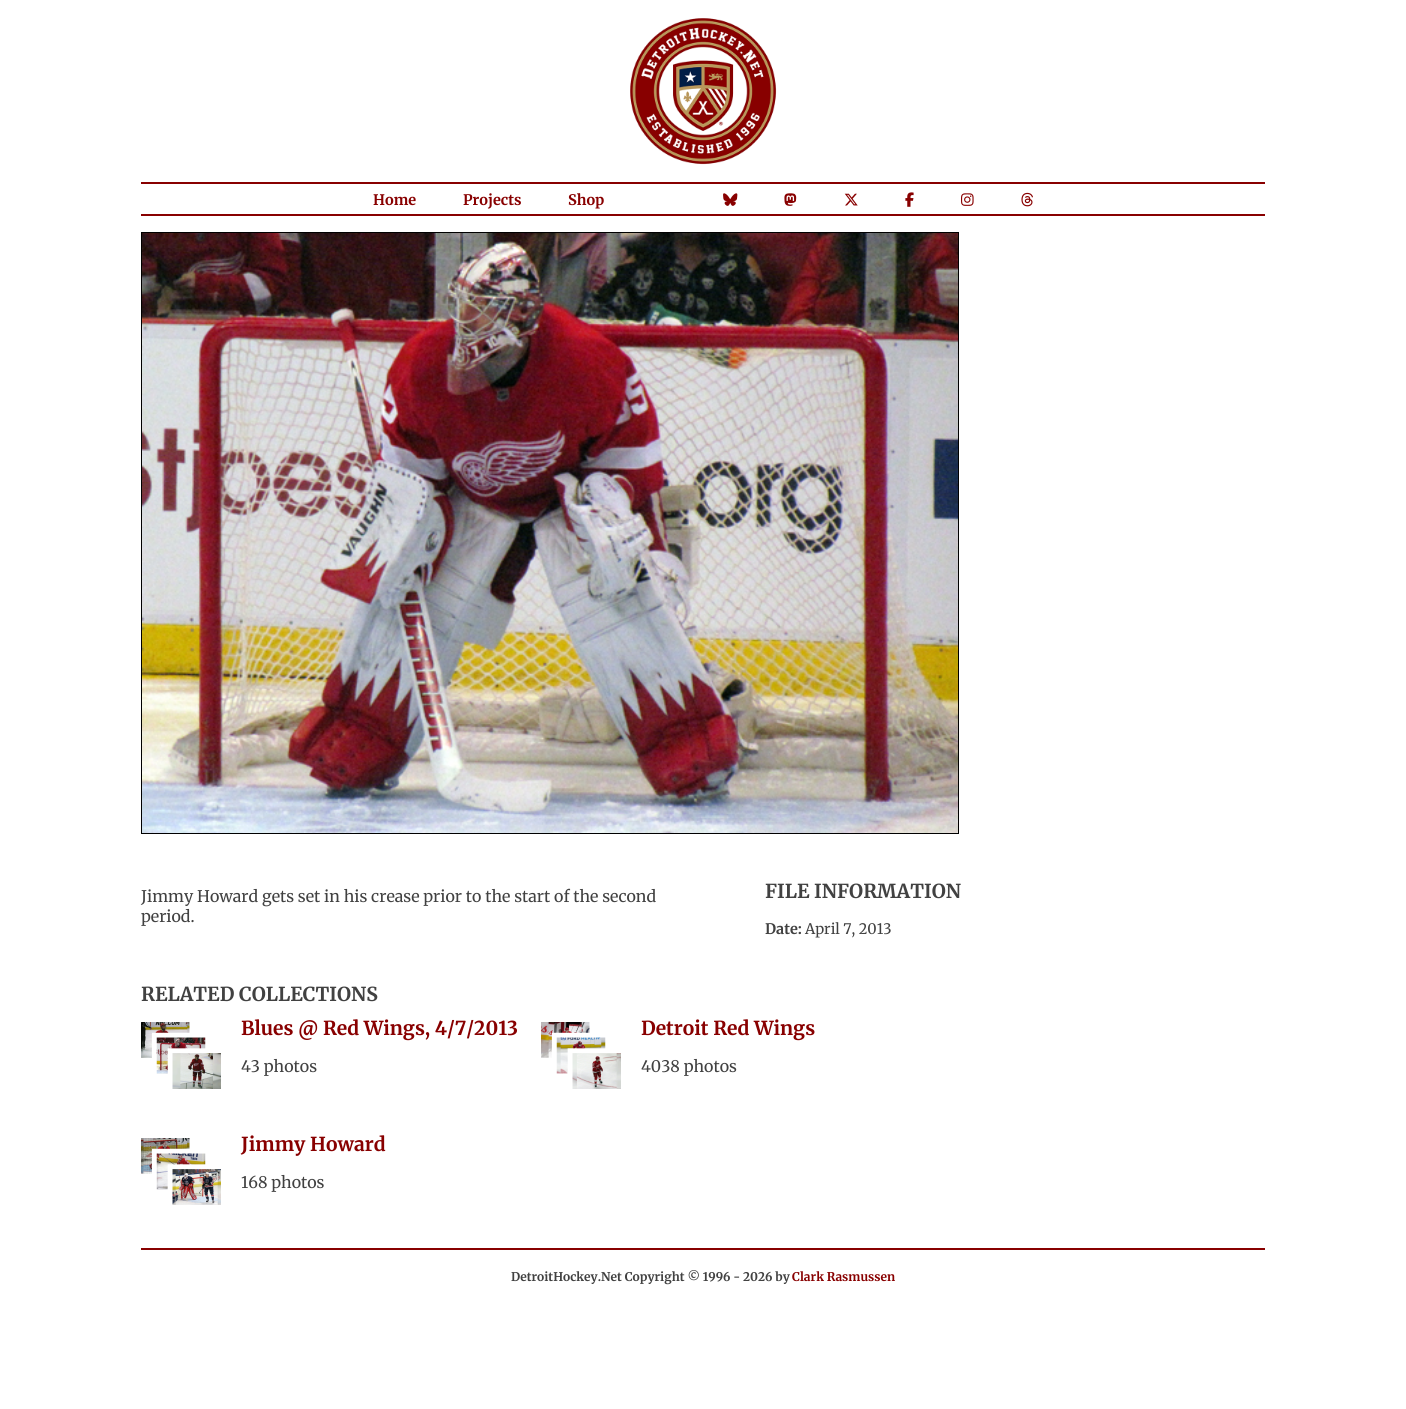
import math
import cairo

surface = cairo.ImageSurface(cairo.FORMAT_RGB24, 1406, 1409)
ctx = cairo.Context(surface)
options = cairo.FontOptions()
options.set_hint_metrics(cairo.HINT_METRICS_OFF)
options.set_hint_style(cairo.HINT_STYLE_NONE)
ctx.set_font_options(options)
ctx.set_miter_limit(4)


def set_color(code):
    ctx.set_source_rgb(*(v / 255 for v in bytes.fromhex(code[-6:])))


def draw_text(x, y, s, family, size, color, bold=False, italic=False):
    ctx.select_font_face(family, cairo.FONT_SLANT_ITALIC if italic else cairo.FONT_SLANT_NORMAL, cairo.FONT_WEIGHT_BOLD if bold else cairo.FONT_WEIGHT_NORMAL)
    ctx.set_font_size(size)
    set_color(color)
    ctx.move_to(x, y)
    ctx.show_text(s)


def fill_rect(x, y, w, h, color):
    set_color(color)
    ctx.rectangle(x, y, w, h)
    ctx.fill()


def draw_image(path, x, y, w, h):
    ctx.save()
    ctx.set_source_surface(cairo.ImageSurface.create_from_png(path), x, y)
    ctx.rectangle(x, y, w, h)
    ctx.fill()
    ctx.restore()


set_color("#ffffff")
ctx.paint()
draw_image("assets/img1.png", 630, 18, 147, 147)
fill_rect(141, 182, 1124, 2, "#880000")
fill_rect(141, 214, 1124, 2, "#880000")
draw_text(373, 205, "Home", "Merriweather", 14.5, "#880000", bold=True)
draw_text(463, 205, "Projects", "Merriweather", 14.5, "#880000", bold=True)
draw_text(568, 205, "Shop", "Merriweather", 14.5, "#880000", bold=True)
draw_image("assets/img2.png", 723, 193, 15, 13)
draw_image("assets/img3.png", 784, 193, 13, 13)
draw_image("assets/img4.png", 844, 193, 14, 13)
draw_image("assets/img5.png", 905, 192, 9, 15)
draw_image("assets/img6.png", 961, 193, 13, 13)
draw_image("assets/img7.png", 1021, 192, 12, 15)
ctx.rectangle(141.5, 232.5, 817, 601)
set_color("#000000")
ctx.set_line_width(1)
ctx.stroke()
draw_image("assets/img8.png", 142, 233, 816, 600)
draw_text(141, 902, "Jimmy Howard gets set in his crease prior to the start of the second", "Merriweather", 16, "#414141")
draw_text(141, 922, "period.", "Merriweather", 16, "#414141")
draw_text(765, 898, "FILE INFORMATION", "Merriweather", 19.25, "#414141", bold=True)
draw_text(765, 934, "Date:", "Merriweather", 14.5, "#414141", bold=True)
draw_text(805, 934, "April 7, 2013", "Merriweather", 14.5, "#414141")
draw_text(141, 1001, "RELATED COLLECTIONS", "Merriweather", 19.25, "#414141", bold=True)
draw_image("assets/img9.png", 141, 1022, 80, 67)
draw_text(241, 1035, "Blues @ Red Wings, 4/7/2013", "Merriweather", 19.25, "#880000", bold=True)
draw_text(241, 1072, "43 photos", "Merriweather", 16, "#414141")
draw_image("assets/img10.png", 541, 1022, 80, 67)
draw_text(641, 1035, "Detroit Red Wings", "Merriweather", 19.25, "#880000", bold=True)
draw_text(641, 1072, "4038 photos", "Merriweather", 16, "#414141")
draw_image("assets/img11.png", 141, 1138, 80, 67)
draw_text(241, 1151, "Jimmy Howard", "Merriweather", 19.25, "#880000", bold=True)
draw_text(241, 1188, "168 photos", "Merriweather", 16, "#414141")
fill_rect(141, 1248, 1124, 2, "#880000")
draw_text(511, 1281, "DetroitHockey.Net Copyright © 1996 - 2026 by", "Merriweather", 12, "#414141", bold=True)
draw_text(792, 1281, "Clark Rasmussen", "Merriweather", 12, "#880000", bold=True)
surface.write_to_png("output.png")
